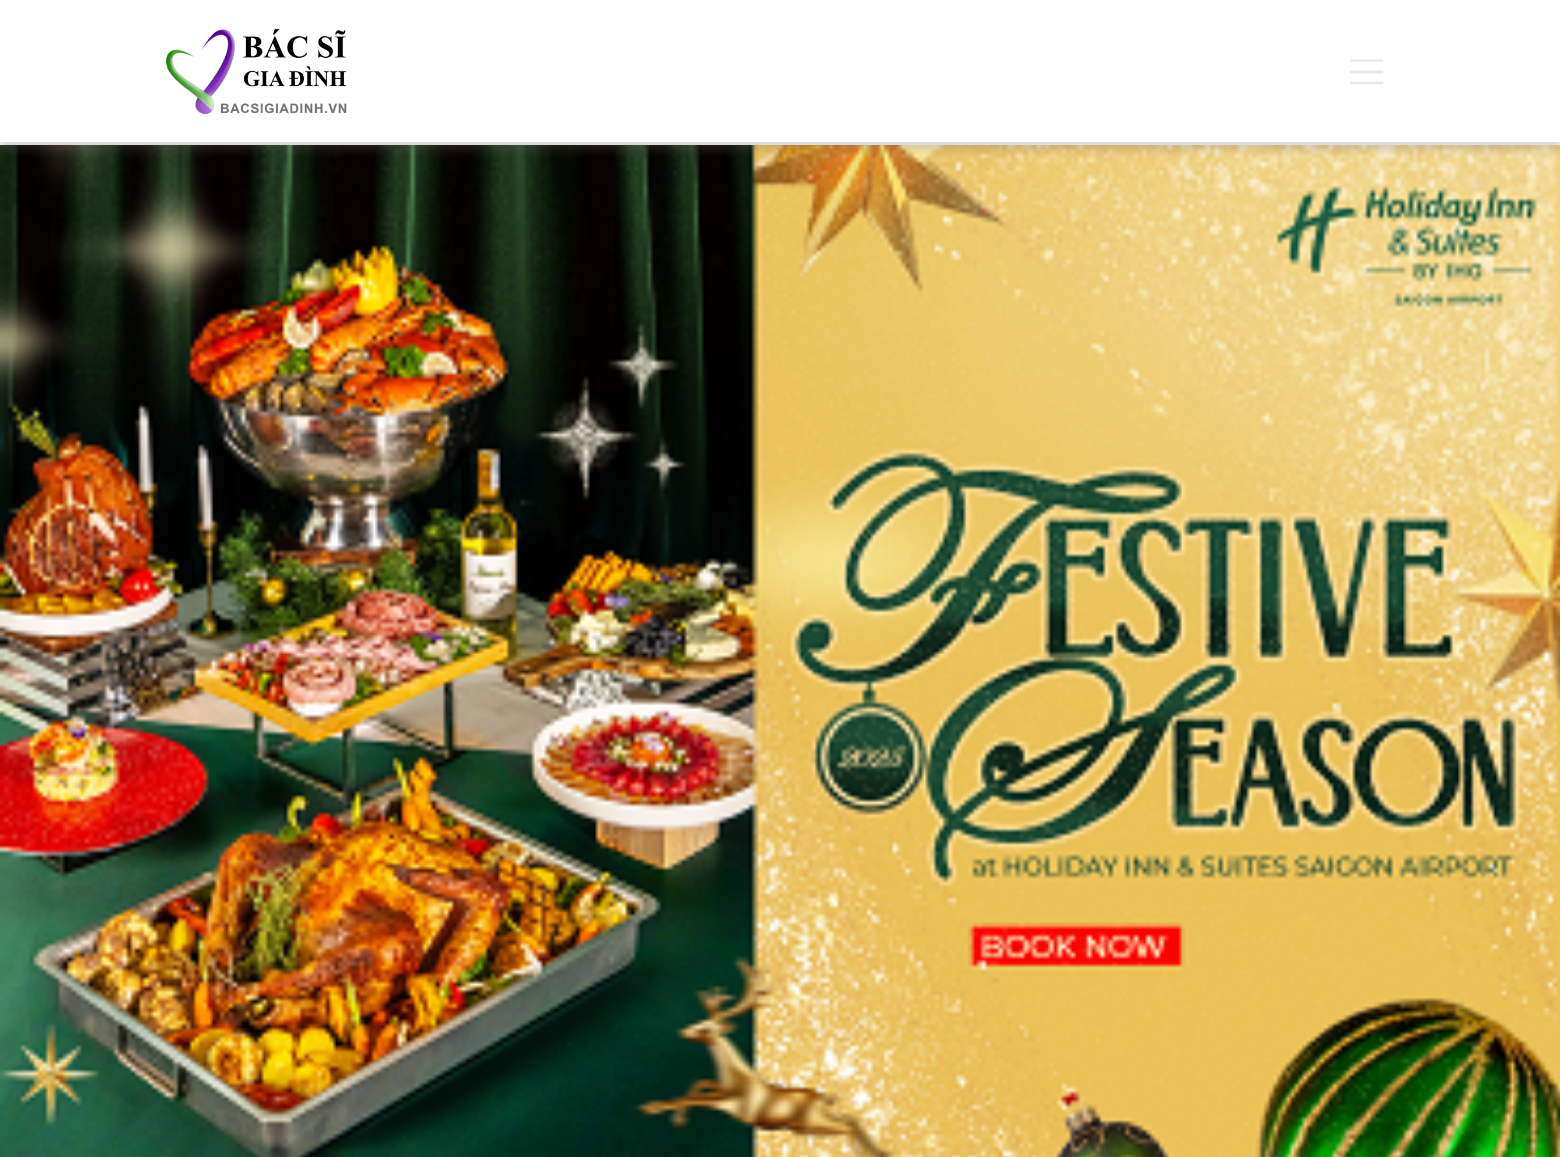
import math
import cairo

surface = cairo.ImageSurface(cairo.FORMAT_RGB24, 1560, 1157)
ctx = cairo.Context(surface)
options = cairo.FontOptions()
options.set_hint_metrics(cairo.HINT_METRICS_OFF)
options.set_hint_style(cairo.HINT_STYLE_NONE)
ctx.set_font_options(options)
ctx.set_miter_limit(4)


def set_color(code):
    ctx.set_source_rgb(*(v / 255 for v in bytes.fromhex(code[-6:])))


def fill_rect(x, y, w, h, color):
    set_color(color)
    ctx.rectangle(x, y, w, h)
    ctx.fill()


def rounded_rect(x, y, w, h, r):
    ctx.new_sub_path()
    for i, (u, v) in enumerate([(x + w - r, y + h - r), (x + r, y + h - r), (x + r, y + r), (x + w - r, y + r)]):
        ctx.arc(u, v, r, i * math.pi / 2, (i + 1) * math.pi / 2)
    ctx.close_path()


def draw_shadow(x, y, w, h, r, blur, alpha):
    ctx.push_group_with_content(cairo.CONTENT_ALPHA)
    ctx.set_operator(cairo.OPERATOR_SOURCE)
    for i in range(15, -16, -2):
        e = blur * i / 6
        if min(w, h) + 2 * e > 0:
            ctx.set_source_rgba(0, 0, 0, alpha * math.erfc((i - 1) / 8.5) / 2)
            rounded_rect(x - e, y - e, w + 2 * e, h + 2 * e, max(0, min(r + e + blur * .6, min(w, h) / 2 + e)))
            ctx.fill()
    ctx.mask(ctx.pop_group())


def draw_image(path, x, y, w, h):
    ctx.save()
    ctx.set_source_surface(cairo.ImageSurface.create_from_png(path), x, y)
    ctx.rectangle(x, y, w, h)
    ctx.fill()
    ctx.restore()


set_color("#ffffff")
ctx.paint()
draw_image("assets/img2.png", 0, 145, 1560, 1012)
set_color("#746262")
draw_shadow(0, 9, 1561, 142, 0, 4, 0.24)
fill_rect(0, 3, 1560, 139, "#ffffff")
draw_image("assets/img1.png", 165, 28, 182, 87)
ctx.new_path()
ctx.move_to(1351.5, 60.5)
ctx.line_to(1382, 60.5)
ctx.move_to(1351.5, 72)
ctx.line_to(1382, 72)
ctx.move_to(1351.5, 83)
ctx.line_to(1382, 83)
set_color("#eaeaea")
ctx.set_line_width(2.8)
ctx.set_line_cap(cairo.LINE_CAP_ROUND)
ctx.stroke()
surface.write_to_png("output.png")
